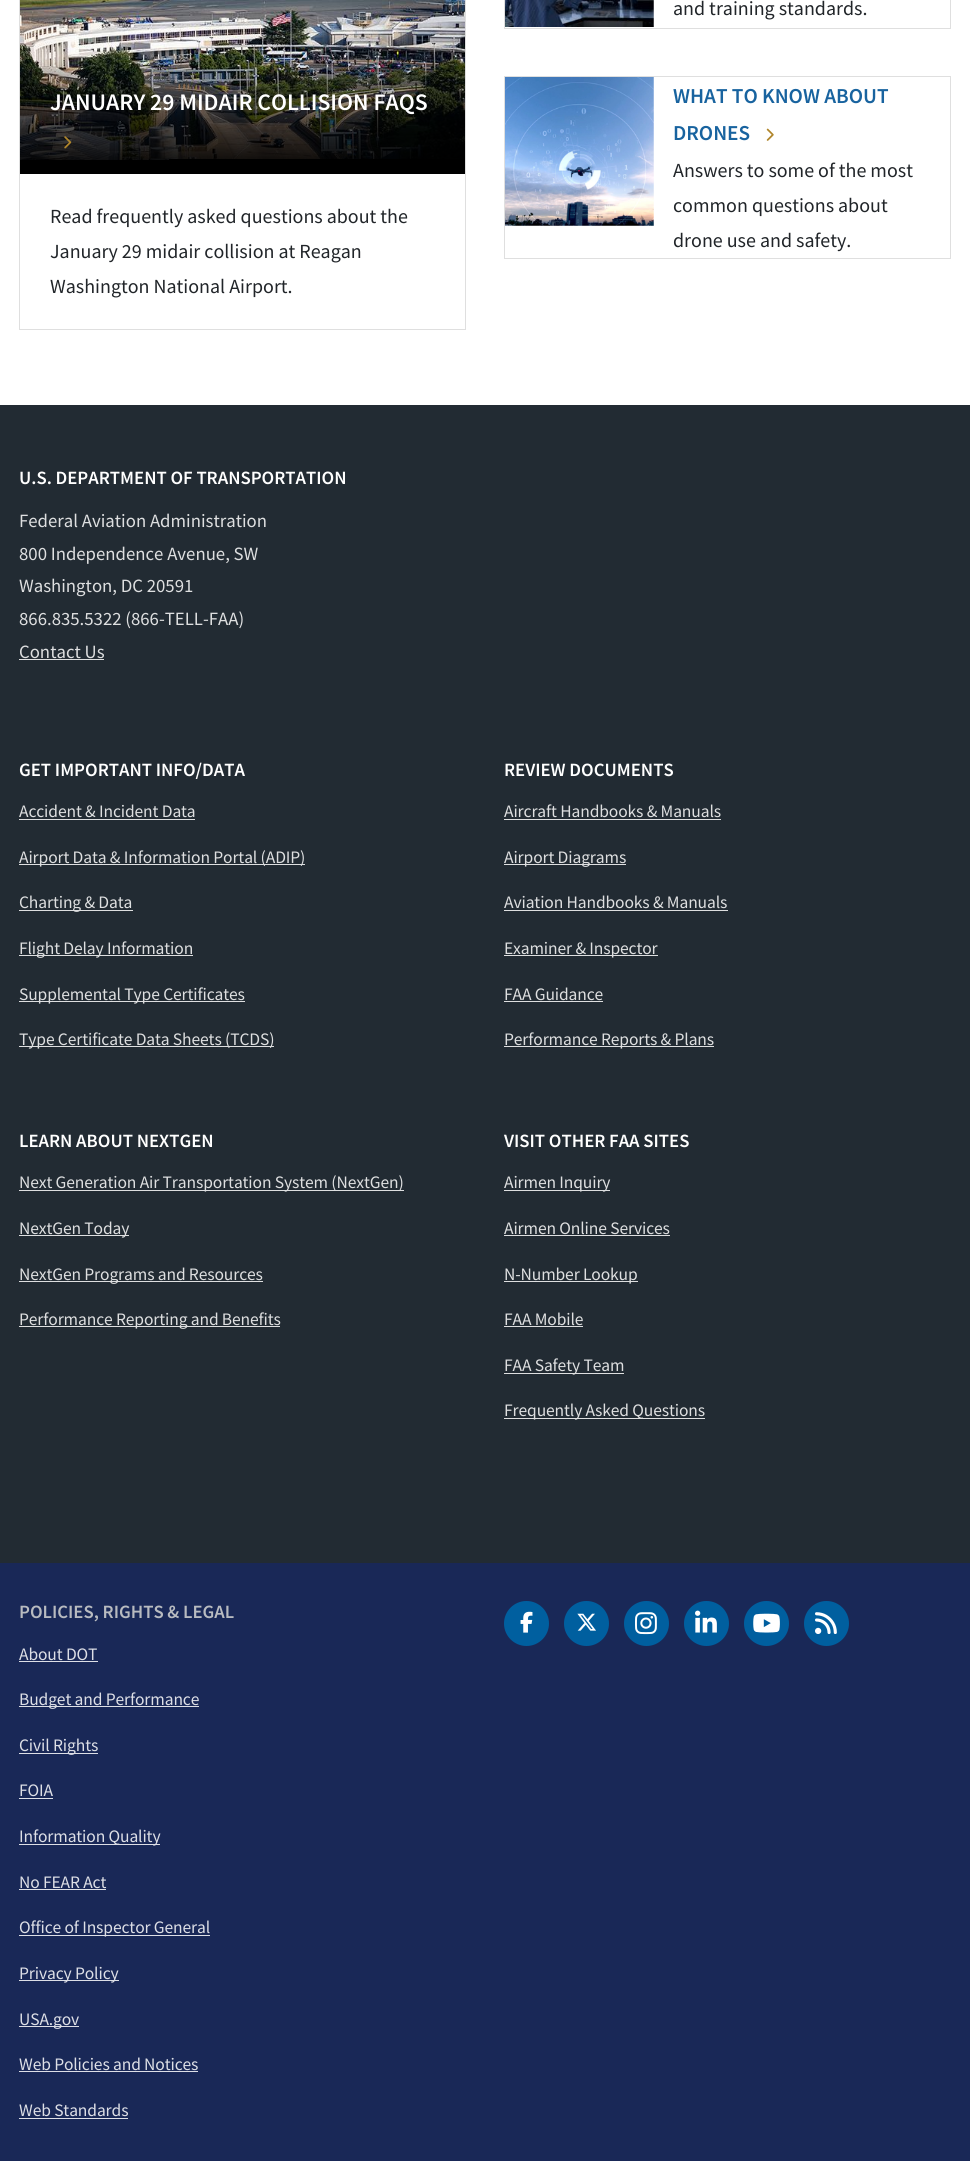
import math
import cairo

surface = cairo.ImageSurface(cairo.FORMAT_RGB24, 970, 2161)
ctx = cairo.Context(surface)
options = cairo.FontOptions()
options.set_hint_metrics(cairo.HINT_METRICS_OFF)
options.set_hint_style(cairo.HINT_STYLE_NONE)
ctx.set_font_options(options)
ctx.set_miter_limit(4)


def set_color(code):
    ctx.set_source_rgb(*(v / 255 for v in bytes.fromhex(code[-6:])))


def draw_text(x, y, s, family, size, color, bold=False, italic=False):
    ctx.select_font_face(family, cairo.FONT_SLANT_ITALIC if italic else cairo.FONT_SLANT_NORMAL, cairo.FONT_WEIGHT_BOLD if bold else cairo.FONT_WEIGHT_NORMAL)
    ctx.set_font_size(size)
    set_color(color)
    ctx.move_to(x, y)
    ctx.show_text(s)


def draw_spaced(x, y, s, letter, word):
    ctx.move_to(x, y)
    for ch in s:
        ctx.show_text(ch)
        ctx.rel_move_to(letter + word * (ch == ' '), 0)


def fill_rect(x, y, w, h, color):
    set_color(color)
    ctx.rectangle(x, y, w, h)
    ctx.fill()


def draw_image(path, x, y, w, h):
    ctx.save()
    ctx.set_source_surface(cairo.ImageSurface.create_from_png(path), x, y)
    ctx.rectangle(x, y, w, h)
    ctx.fill()
    ctx.restore()


set_color("#192857")
ctx.paint()
fill_rect(0, 0, 970, 405, "#ffffff")
ctx.rectangle(19.5, -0.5, 446, 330)
set_color("#dfdfdf")
ctx.set_line_width(1)
ctx.stroke()
draw_image("assets/img1.png", 20, 0, 445, 160)
gradient = cairo.LinearGradient(242, -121, 243, 174)
gradient.add_color_stop_rgba(0.1, 0, 0, 0, 0)
gradient.add_color_stop_rgba(0.6, 0, 0, 0, 0)
gradient.add_color_stop_rgba(0.7, 0, 0, 0, 0.2)
gradient.add_color_stop_rgba(0.85, 0, 0, 0, 0.7)
gradient.add_color_stop_rgba(0.95, 0, 0, 0, 0.9)
gradient.add_color_stop_rgba(0.95, 0, 0, 0, 1)
ctx.set_source(gradient)
ctx.rectangle(20, 58, 445, 116)
ctx.fill()
draw_text(50, 110, "JANUARY 29 MIDAIR COLLISION FAQS", "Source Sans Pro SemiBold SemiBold", 23.75, "#ffffff")
draw_image("assets/img2.png", 64, 136, 8, 13)
draw_text(50, 223, "Read frequently asked questions about the", "Source Sans Pro", 20, "#212529")
draw_text(50, 258, "January 29 midair collision at Reagan", "Source Sans Pro", 20, "#212529")
draw_text(50, 293, "Washington National Airport.", "Source Sans Pro", 20, "#212529")
ctx.rectangle(504.5, -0.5, 446, 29)
set_color("#dfdfdf")
ctx.stroke()
draw_image("assets/img3.png", 505, 0, 149, 27)
draw_text(673, 15, "and training standards.", "Source Sans Pro", 20, "#212529")
ctx.rectangle(504.5, 76.5, 446, 182)
set_color("#dfdfdf")
ctx.stroke()
draw_image("assets/img4.png", 505, 77, 149, 149)
draw_text(673, 103, "WHAT TO KNOW ABOUT", "Source Sans Pro SemiBold SemiBold", 21.25, "#18639f")
draw_text(673, 140, "DRONES", "Source Sans Pro SemiBold SemiBold", 21.25, "#18639f")
draw_image("assets/img5.png", 766, 128, 8, 13)
draw_text(673, 177, "Answers to some of the most", "Source Sans Pro", 20, "#212529")
draw_text(673, 212, "common questions about", "Source Sans Pro", 20, "#212529")
draw_text(673, 247, "drone use and safety.", "Source Sans Pro", 20, "#212529")
fill_rect(0, 405, 970, 1158, "#222b33")
draw_text(19, 484, "U.S. DEPARTMENT OF TRANSPORTATION", "Source Sans Pro SemiBold SemiBold", 18.75, "#ffffff")
draw_text(19, 527, "Federal Aviation Administration", "Source Sans Pro", 18.75, "#dedfe0")
draw_text(19, 560, "800 Independence Avenue, SW", "Source Sans Pro", 18.75, "#dedfe0")
draw_text(19, 592, "Washington, DC 20591", "Source Sans Pro", 18.75, "#dedfe0")
draw_text(19, 625, "866.835.5322 (866-TELL-FAA)", "Source Sans Pro", 18.75, "#dedfe0")
draw_text(19, 658, "Contact Us", "Source Sans Pro", 18.75, "#dedfe0")
fill_rect(19, 659, 85, 1, "#dedfe0")
draw_text(19, 776, "GET IMPORTANT INFO/DATA", "Source Sans Pro SemiBold SemiBold", 18.75, "#ffffff")
ctx.select_font_face("Source Sans Pro")
ctx.set_font_size(17.5)
set_color("#dedfe0")
draw_spaced(19, 817, "Accident & Incident Data", -0.12, 0)
fill_rect(19, 819, 176, 1, "#dedfe0")
fill_rect(19, 864, 286, 1, "#dedfe0")
draw_spaced(19, 863, "Airport Data & Information Portal (ADIP)", -0.12, 0)
fill_rect(19, 910, 114, 1, "#dedfe0")
draw_spaced(19, 908, "Charting & Data", -0.12, 0)
fill_rect(19, 955, 174, 1, "#dedfe0")
draw_spaced(19, 954, "Flight Delay Information", -0.12, 0)
fill_rect(19, 1001, 226, 1, "#dedfe0")
draw_spaced(19, 1000, "Supplemental Type Certificates", -0.12, 0)
fill_rect(19, 1046, 255, 1, "#dedfe0")
draw_spaced(19, 1045, "Type Certificate Data Sheets (TCDS)", -0.12, 0)
draw_text(504, 776, "REVIEW DOCUMENTS", "Source Sans Pro SemiBold SemiBold", 18.75, "#ffffff")
ctx.select_font_face("Source Sans Pro")
ctx.set_font_size(17.5)
set_color("#dedfe0")
draw_spaced(504, 817, "Aircraft Handbooks & Manuals", -0.12, 0)
fill_rect(504, 819, 217, 1, "#dedfe0")
fill_rect(504, 864, 122, 1, "#dedfe0")
draw_spaced(504, 863, "Airport Diagrams", -0.12, 0)
draw_spaced(504, 908, "Aviation Handbooks & Manuals", -0.12, 0)
fill_rect(504, 910, 224, 1, "#dedfe0")
fill_rect(504, 955, 154, 1, "#dedfe0")
draw_spaced(504, 954, "Examiner & Inspector", -0.12, 0)
draw_spaced(504, 1000, "FAA Guidance", -0.12, 0)
fill_rect(504, 1001, 99, 1, "#dedfe0")
fill_rect(504, 1046, 210, 1, "#dedfe0")
draw_spaced(504, 1045, "Performance Reports & Plans", -0.12, 0)
draw_text(19, 1147, "LEARN ABOUT NEXTGEN", "Source Sans Pro SemiBold SemiBold", 18.75, "#ffffff")
fill_rect(19, 1190, 385, 1, "#dedfe0")
ctx.select_font_face("Source Sans Pro")
ctx.set_font_size(17.5)
draw_spaced(19, 1188, "Next Generation Air Transportation System (NextGen)", -0.12, 0)
fill_rect(19, 1235, 110, 1, "#dedfe0")
draw_spaced(19, 1234, "NextGen Today", -0.12, 0)
fill_rect(19, 1281, 244, 1, "#dedfe0")
draw_spaced(19, 1280, "NextGen Programs and Resources", -0.12, 0)
fill_rect(19, 1326, 261, 1, "#dedfe0")
draw_spaced(19, 1325, "Performance Reporting and Benefits", -0.12, 0)
draw_text(504, 1147, "VISIT OTHER FAA SITES", "Source Sans Pro SemiBold SemiBold", 18.75, "#ffffff")
fill_rect(504, 1190, 106, 1, "#dedfe0")
ctx.select_font_face("Source Sans Pro")
ctx.set_font_size(17.5)
draw_spaced(504, 1188, "Airmen Inquiry", -0.12, 0)
draw_spaced(504, 1234, "Airmen Online Services", -0.12, 0)
fill_rect(504, 1235, 166, 1, "#dedfe0")
fill_rect(504, 1281, 134, 1, "#dedfe0")
draw_spaced(504, 1280, "N-Number Lookup", -0.12, 0)
draw_spaced(504, 1325, "FAA Mobile", -0.12, 0)
fill_rect(504, 1326, 79, 1, "#dedfe0")
fill_rect(504, 1373, 120, 1, "#dedfe0")
draw_spaced(504, 1371, "FAA Safety Team", -0.12, 0)
fill_rect(504, 1418, 201, 1, "#dedfe0")
draw_spaced(504, 1416, "Frequently Asked Questions", -0.12, 0)
draw_text(19, 1618, "POLICIES, RIGHTS & LEGAL", "Source Sans Pro SemiBold SemiBold", 18.75, "#b8bbc0")
ctx.select_font_face("Source Sans Pro")
ctx.set_font_size(17.5)
set_color("#dddfe6")
draw_spaced(19, 1660, "About DOT", -0.12, 0)
fill_rect(19, 1661, 79, 1, "#dddfe6")
fill_rect(19, 1706, 180, 1, "#dddfe6")
draw_spaced(19, 1705, "Budget and Performance", -0.12, 0)
fill_rect(19, 1753, 79, 1, "#dddfe6")
draw_spaced(19, 1751, "Civil Rights", -0.12, 0)
draw_spaced(19, 1796, "FOIA", -0.12, 0)
fill_rect(19, 1798, 34, 1, "#dddfe6")
fill_rect(19, 1844, 141, 1, "#dddfe6")
draw_spaced(19, 1842, "Information Quality", -0.12, 0)
draw_spaced(19, 1888, "No FEAR Act", -0.12, 0)
fill_rect(19, 1889, 87, 1, "#dddfe6")
fill_rect(19, 1935, 191, 1, "#dddfe6")
draw_spaced(19, 1933, "Office of Inspector General", -0.12, 0)
fill_rect(19, 1980, 100, 1, "#dddfe6")
draw_spaced(19, 1979, "Privacy Policy", -0.12, 0)
fill_rect(19, 2026, 60, 1, "#dddfe6")
draw_spaced(19, 2025, "USA.gov", -0.12, 0)
draw_spaced(19, 2070, "Web Policies and Notices", -0.12, 0)
fill_rect(19, 2071, 179, 1, "#dddfe6")
draw_spaced(19, 2116, "Web Standards", -0.12, 0)
fill_rect(19, 2118, 109, 1, "#dddfe6")
set_color("#005f9f")
ctx.new_path()
ctx.arc(526.5, 1623.5, 22.5, 0, 2 * math.pi)
ctx.fill()
draw_image("assets/img6.png", 520, 1611, 13, 22)
ctx.arc(586.5, 1623.5, 22.5, 0, 2 * math.pi)
ctx.fill()
draw_image("assets/img7.png", 577, 1613, 19, 18)
ctx.arc(646.5, 1623.5, 22.5, 0, 2 * math.pi)
ctx.fill()
draw_image("assets/img8.png", 635, 1612, 22, 23)
ctx.arc(706.5, 1623.5, 22.5, 0, 2 * math.pi)
ctx.fill()
draw_image("assets/img9.png", 695, 1610, 22, 23)
ctx.arc(766.5, 1623.5, 22.5, 0, 2 * math.pi)
ctx.fill()
draw_image("assets/img10.png", 753, 1613, 27, 20)
ctx.arc(826.5, 1623.5, 22.5, 0, 2 * math.pi)
ctx.fill()
draw_image("assets/img11.png", 815, 1612, 22, 22)
surface.write_to_png("output.png")
